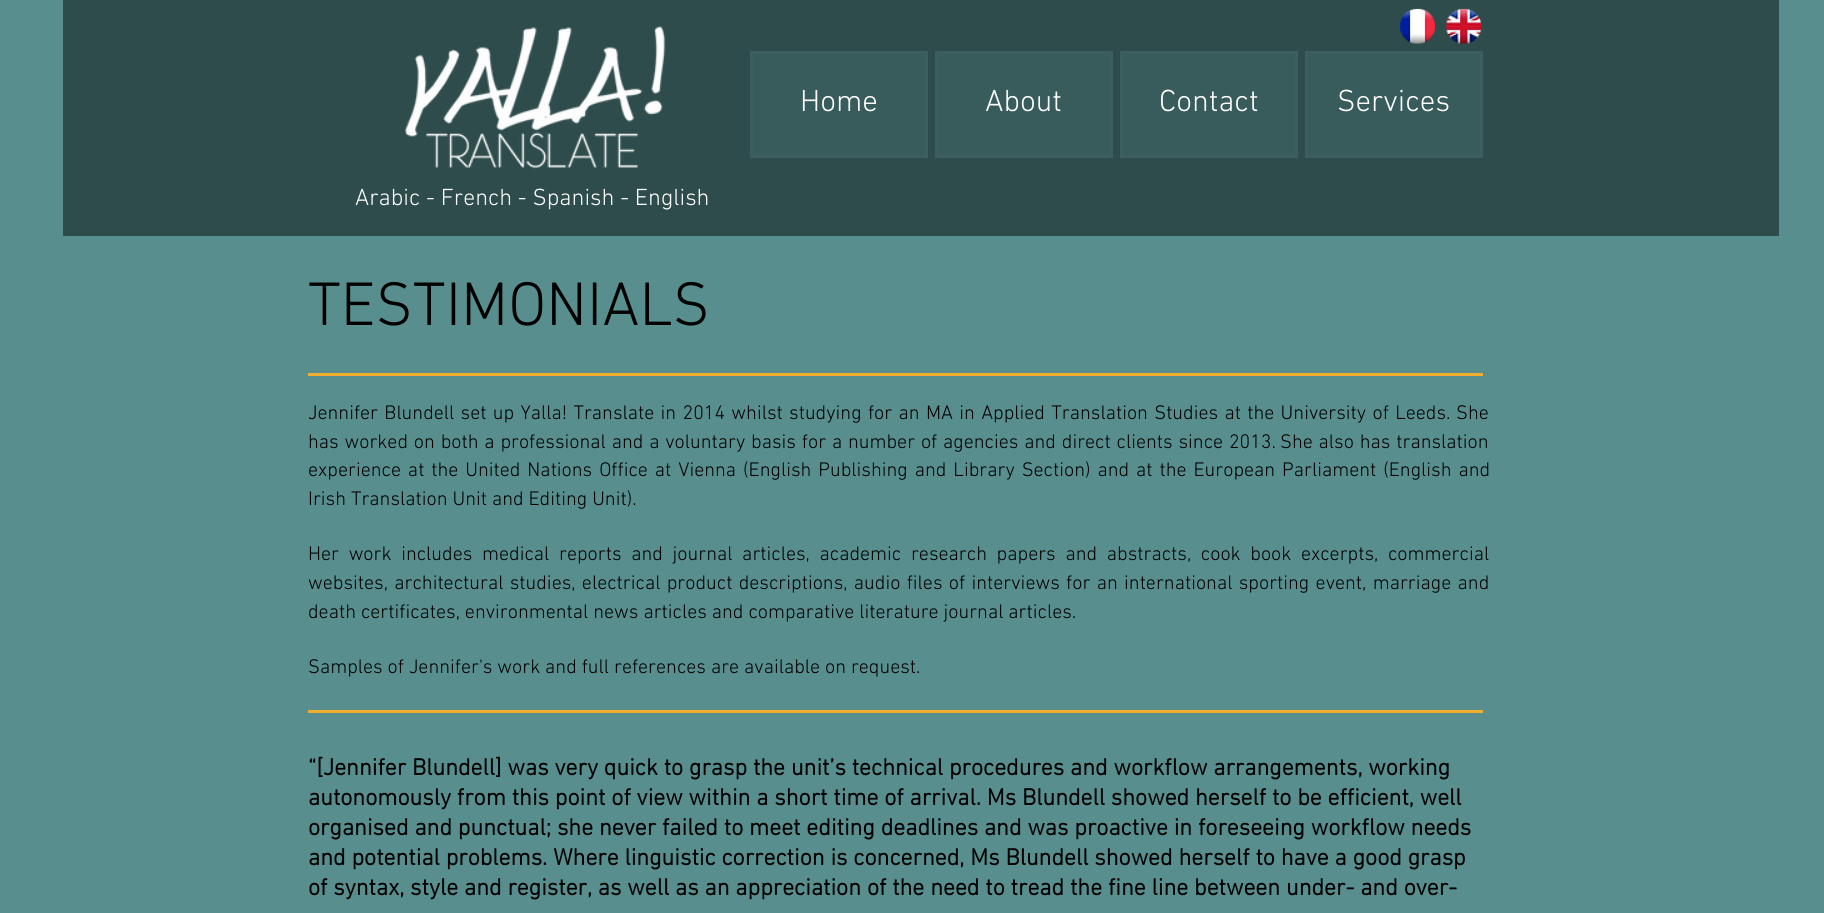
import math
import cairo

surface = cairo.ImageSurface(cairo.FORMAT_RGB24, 1824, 913)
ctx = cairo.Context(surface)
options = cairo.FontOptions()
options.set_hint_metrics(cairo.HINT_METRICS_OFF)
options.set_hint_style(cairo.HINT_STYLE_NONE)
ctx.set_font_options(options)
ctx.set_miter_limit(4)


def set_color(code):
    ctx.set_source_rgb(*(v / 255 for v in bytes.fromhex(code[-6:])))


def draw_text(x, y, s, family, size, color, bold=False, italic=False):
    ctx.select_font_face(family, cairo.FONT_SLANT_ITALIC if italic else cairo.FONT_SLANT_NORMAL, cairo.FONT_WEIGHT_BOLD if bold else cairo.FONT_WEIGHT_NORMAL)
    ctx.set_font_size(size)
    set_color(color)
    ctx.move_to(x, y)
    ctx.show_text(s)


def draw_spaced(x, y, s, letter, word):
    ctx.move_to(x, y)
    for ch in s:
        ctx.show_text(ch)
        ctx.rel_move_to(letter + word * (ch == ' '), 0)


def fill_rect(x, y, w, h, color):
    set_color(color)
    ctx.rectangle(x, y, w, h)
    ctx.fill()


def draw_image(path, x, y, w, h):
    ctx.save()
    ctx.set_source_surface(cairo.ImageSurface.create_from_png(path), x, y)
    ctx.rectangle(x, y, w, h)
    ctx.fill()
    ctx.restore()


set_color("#588e8e")
ctx.paint()
fill_rect(63, 0, 1716, 236, "#2f4c4c")
draw_image("assets/img1.png", 404, 26, 262, 143)
draw_image("assets/img2.png", 1400, 8, 35, 36)
draw_image("assets/img3.png", 1446, 8, 36, 36)
set_color("#385b5b")
ctx.rectangle(751.5, 52.5, 175, 104)
ctx.fill_preserve()
set_color("#3b5f5f")
ctx.set_line_width(3)
ctx.stroke()
draw_text(800, 111, "Home", "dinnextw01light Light", 31, "#ffffff")
set_color("#385b5b")
ctx.rectangle(936.5, 52.5, 175, 104)
ctx.fill_preserve()
set_color("#3b5f5f")
ctx.stroke()
draw_text(985, 111, "About", "dinnextw01light Light", 31, "#ffffff")
set_color("#385b5b")
ctx.rectangle(1121.5, 52.5, 175, 104)
ctx.fill_preserve()
set_color("#3b5f5f")
ctx.stroke()
draw_text(1159, 111, "Contact", "dinnextw01light Light", 31, "#ffffff")
set_color("#385b5b")
ctx.rectangle(1306.5, 52.5, 175, 104)
ctx.fill_preserve()
set_color("#3b5f5f")
ctx.stroke()
draw_text(1337, 111, "Services", "dinnextw01light Light", 31, "#ffffff")
draw_text(355, 205, "Arabic - French - Spanish - English", "dinnextw01light Light", 23.75, "#ffffff")
draw_text(308, 325, "TESTIMONIALS", "dinnextw01light Light", 62.5, "#000000")
fill_rect(308, 373, 1175, 3, "#f2ad2e")
ctx.set_font_size(20)
set_color("#000000")
draw_spaced(308, 419, "Jennifer Blundell set up Yalla! Translate in 2014 whilst studying for an MA in Applied Translation Studies at the University of Leeds.", 0, 1.4)
draw_text(1456, 419, "She", "dinnextw01light Light", 20, "#000000")
draw_spaced(308, 448, "has worked on both a professional and a voluntary basis for a number of agencies and direct clients since 2013.", 0, 0.9)
draw_spaced(1280, 448, "She also has translation", 0, 0.9)
draw_spaced(308, 476, "experience at the United Nations Office at Vienna (English Publishing and Library Section) and at the European Parliament (English and", 0, 2)
draw_text(308, 505, "Irish Translation Unit and Editing Unit).", "dinnextw01light Light", 20, "#000000")
draw_spaced(308, 560, "Her work includes", 0, 4.75)
draw_spaced(482, 560, "medical reports and journal articles, academic research papers and abstracts, cook book excerpts, commercial", 0, 4.75)
draw_spaced(308, 589, "websites, architectural studies, electrical product descriptions, audio files of interviews for an international sporting event, marriage and", 0, 1.4)
draw_text(308, 618, "death certificates, environmental news articles and comparative literature journal articles.", "dinnextw01light Light", 20, "#000000")
draw_text(308, 673, "Samples of Jennifer's work and full references are available on request.", "dinnextw01light Light", 20, "#000000")
fill_rect(308, 710, 1175, 3, "#f2ad2e")
draw_text(308, 775, "“[Jennifer Blundell] was very quick to grasp the unit’s technical procedures and workflow arrangements, working", "dinnextw01light", 23.75, "#000000", bold=True)
draw_text(308, 805, "autonomously from this point of view within a short time of arrival. Ms Blundell showed herself to be efficient, well", "dinnextw01light", 23.75, "#000000", bold=True)
draw_text(308, 835, "organised and punctual; she never failed to meet editing deadlines and was proactive in foreseeing workflow needs", "dinnextw01light", 23.75, "#000000", bold=True)
draw_text(308, 865, "and potential problems. Where linguistic correction is concerned, Ms Blundell showed herself to have a good grasp", "dinnextw01light", 23.75, "#000000", bold=True)
draw_text(308, 895, "of syntax, style and register, as well as an appreciation of the need to tread the fine line between under- and over-", "dinnextw01light", 23.75, "#000000", bold=True)
surface.write_to_png("output.png")
